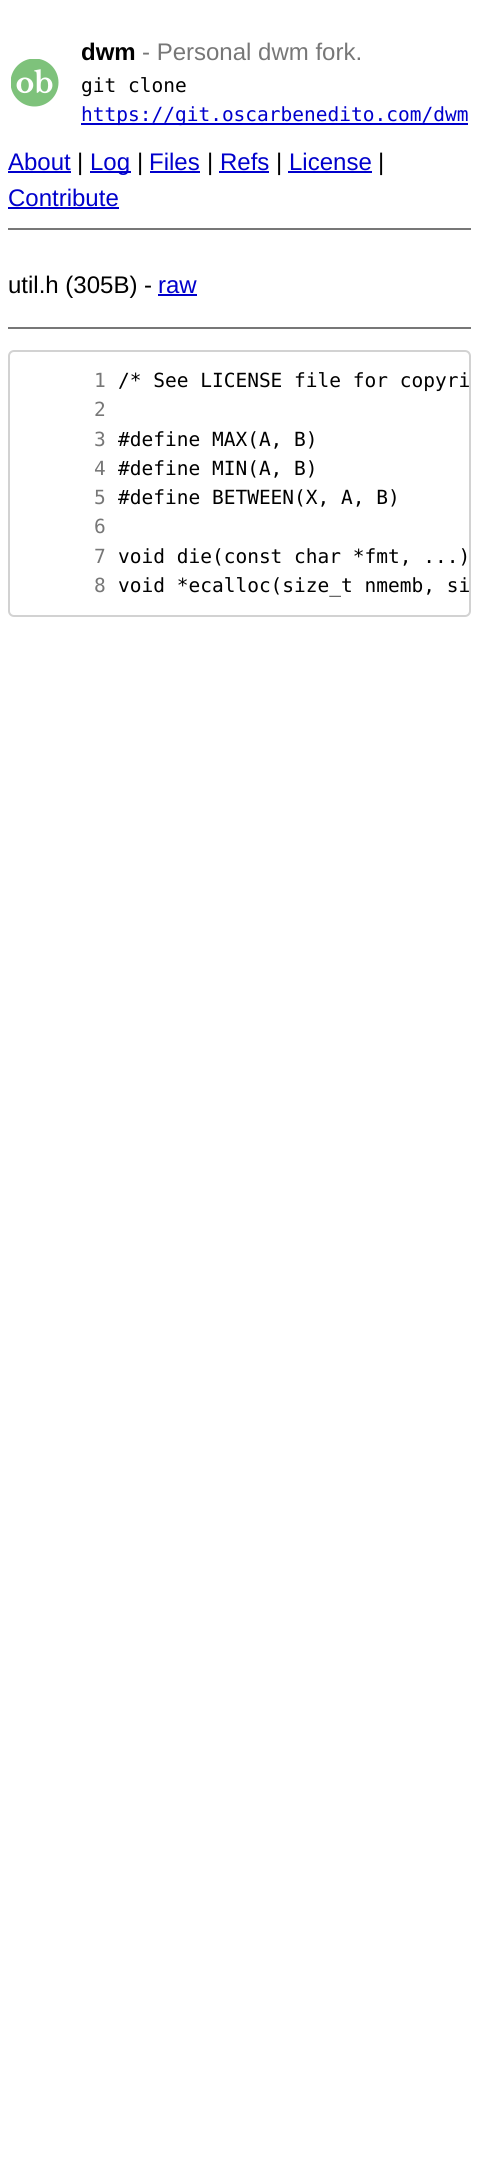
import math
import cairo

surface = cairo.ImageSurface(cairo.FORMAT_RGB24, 478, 2183)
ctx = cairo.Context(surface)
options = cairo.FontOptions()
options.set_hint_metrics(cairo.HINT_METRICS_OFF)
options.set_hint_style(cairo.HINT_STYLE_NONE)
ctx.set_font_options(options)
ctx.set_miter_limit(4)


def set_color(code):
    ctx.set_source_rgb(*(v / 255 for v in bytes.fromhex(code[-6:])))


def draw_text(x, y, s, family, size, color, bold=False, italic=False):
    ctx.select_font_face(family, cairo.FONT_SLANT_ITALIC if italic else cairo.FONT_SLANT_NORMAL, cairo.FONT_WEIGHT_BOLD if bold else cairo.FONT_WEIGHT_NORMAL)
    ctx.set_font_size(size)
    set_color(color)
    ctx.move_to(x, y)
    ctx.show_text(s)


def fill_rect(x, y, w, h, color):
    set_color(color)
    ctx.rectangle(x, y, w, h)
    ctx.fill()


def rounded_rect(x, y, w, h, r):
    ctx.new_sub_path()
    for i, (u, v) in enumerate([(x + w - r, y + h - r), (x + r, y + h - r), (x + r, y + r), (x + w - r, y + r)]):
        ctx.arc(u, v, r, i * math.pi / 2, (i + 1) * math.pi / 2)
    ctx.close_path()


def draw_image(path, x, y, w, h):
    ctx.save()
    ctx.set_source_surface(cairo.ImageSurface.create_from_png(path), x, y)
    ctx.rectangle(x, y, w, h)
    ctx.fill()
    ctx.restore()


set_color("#ffffff")
ctx.paint()
draw_image("assets/img1.png", 11, 59, 48, 48)
draw_text(81, 60, "dwm", "Liberation Sans", 24, "#000000", bold=True)
draw_text(142, 60, "- Personal dwm fork.", "Liberation Sans", 24, "#777777")
draw_text(81, 92, "git clone", "DejaVu Sans Mono", 19.5, "#000000")
fill_rect(81, 123, 387, 2, "#0000cc")
draw_text(81, 121, "https://git.oscarbenedito.com/dwm", "DejaVu Sans Mono", 19.5, "#0000cc")
draw_text(8, 170, "About", "Liberation Sans", 24, "#0000cc")
fill_rect(8, 171, 63, 2, "#0000cc")
draw_text(77, 170, "|", "Liberation Sans", 24, "#000000")
fill_rect(90, 171, 41, 2, "#0000cc")
draw_text(90, 170, "Log", "Liberation Sans", 24, "#0000cc")
draw_text(137, 170, "|", "Liberation Sans", 24, "#000000")
draw_text(149, 170, "Files", "Liberation Sans", 24, "#0000cc")
fill_rect(150, 171, 50, 2, "#0000cc")
draw_text(207, 170, "|", "Liberation Sans", 24, "#000000")
draw_text(220, 170, "Refs", "Liberation Sans", 24, "#0000cc")
fill_rect(219, 171, 50, 2, "#0000cc")
draw_text(276, 170, "|", "Liberation Sans", 24, "#000000")
draw_text(289, 170, "License", "Liberation Sans", 24, "#0000cc")
fill_rect(288, 171, 84, 2, "#0000cc")
draw_text(378, 170, "|", "Liberation Sans", 24, "#000000")
draw_text(8, 206, "Contribute", "Liberation Sans", 24, "#0000cc")
fill_rect(8, 207, 111, 2, "#0000cc")
fill_rect(8, 228, 463, 2, "#777777")
draw_text(8, 293, "util.h (305B) -", "Liberation Sans", 24, "#000000")
draw_text(158, 293, "raw", "Liberation Sans", 24, "#0000cc")
fill_rect(158, 294, 39, 2, "#0000cc")
fill_rect(8, 327, 463, 2, "#777777")
rounded_rect(9, 351, 461, 265, 5)
set_color("#d2d2d2")
ctx.stroke()
draw_text(94, 387, "1", "DejaVu Sans Mono", 19.5, "#777777")
draw_text(118, 387, "/* See LICENSE file for copyri", "DejaVu Sans Mono", 19.5, "#000000")
draw_text(94, 416, "2", "DejaVu Sans Mono", 19.5, "#777777")
draw_text(94, 446, "3", "DejaVu Sans Mono", 19.5, "#777777")
draw_text(118, 446, "#define MAX(A, B)", "DejaVu Sans Mono", 19.5, "#000000")
draw_text(94, 475, "4", "DejaVu Sans Mono", 19.5, "#777777")
draw_text(118, 475, "#define MIN(A, B)", "DejaVu Sans Mono", 19.5, "#000000")
draw_text(94, 504, "5", "DejaVu Sans Mono", 19.5, "#777777")
draw_text(118, 504, "#define BETWEEN(X, A, B)", "DejaVu Sans Mono", 19.5, "#000000")
draw_text(94, 533, "6", "DejaVu Sans Mono", 19.5, "#777777")
draw_text(94, 563, "7", "DejaVu Sans Mono", 19.5, "#777777")
draw_text(118, 563, "void die(const char *fmt, ...)", "DejaVu Sans Mono", 19.5, "#000000")
draw_text(94, 592, "8", "DejaVu Sans Mono", 19.5, "#777777")
draw_text(118, 592, "void *ecalloc(size_t nmemb, si", "DejaVu Sans Mono", 19.5, "#000000")
surface.write_to_png("output.png")
